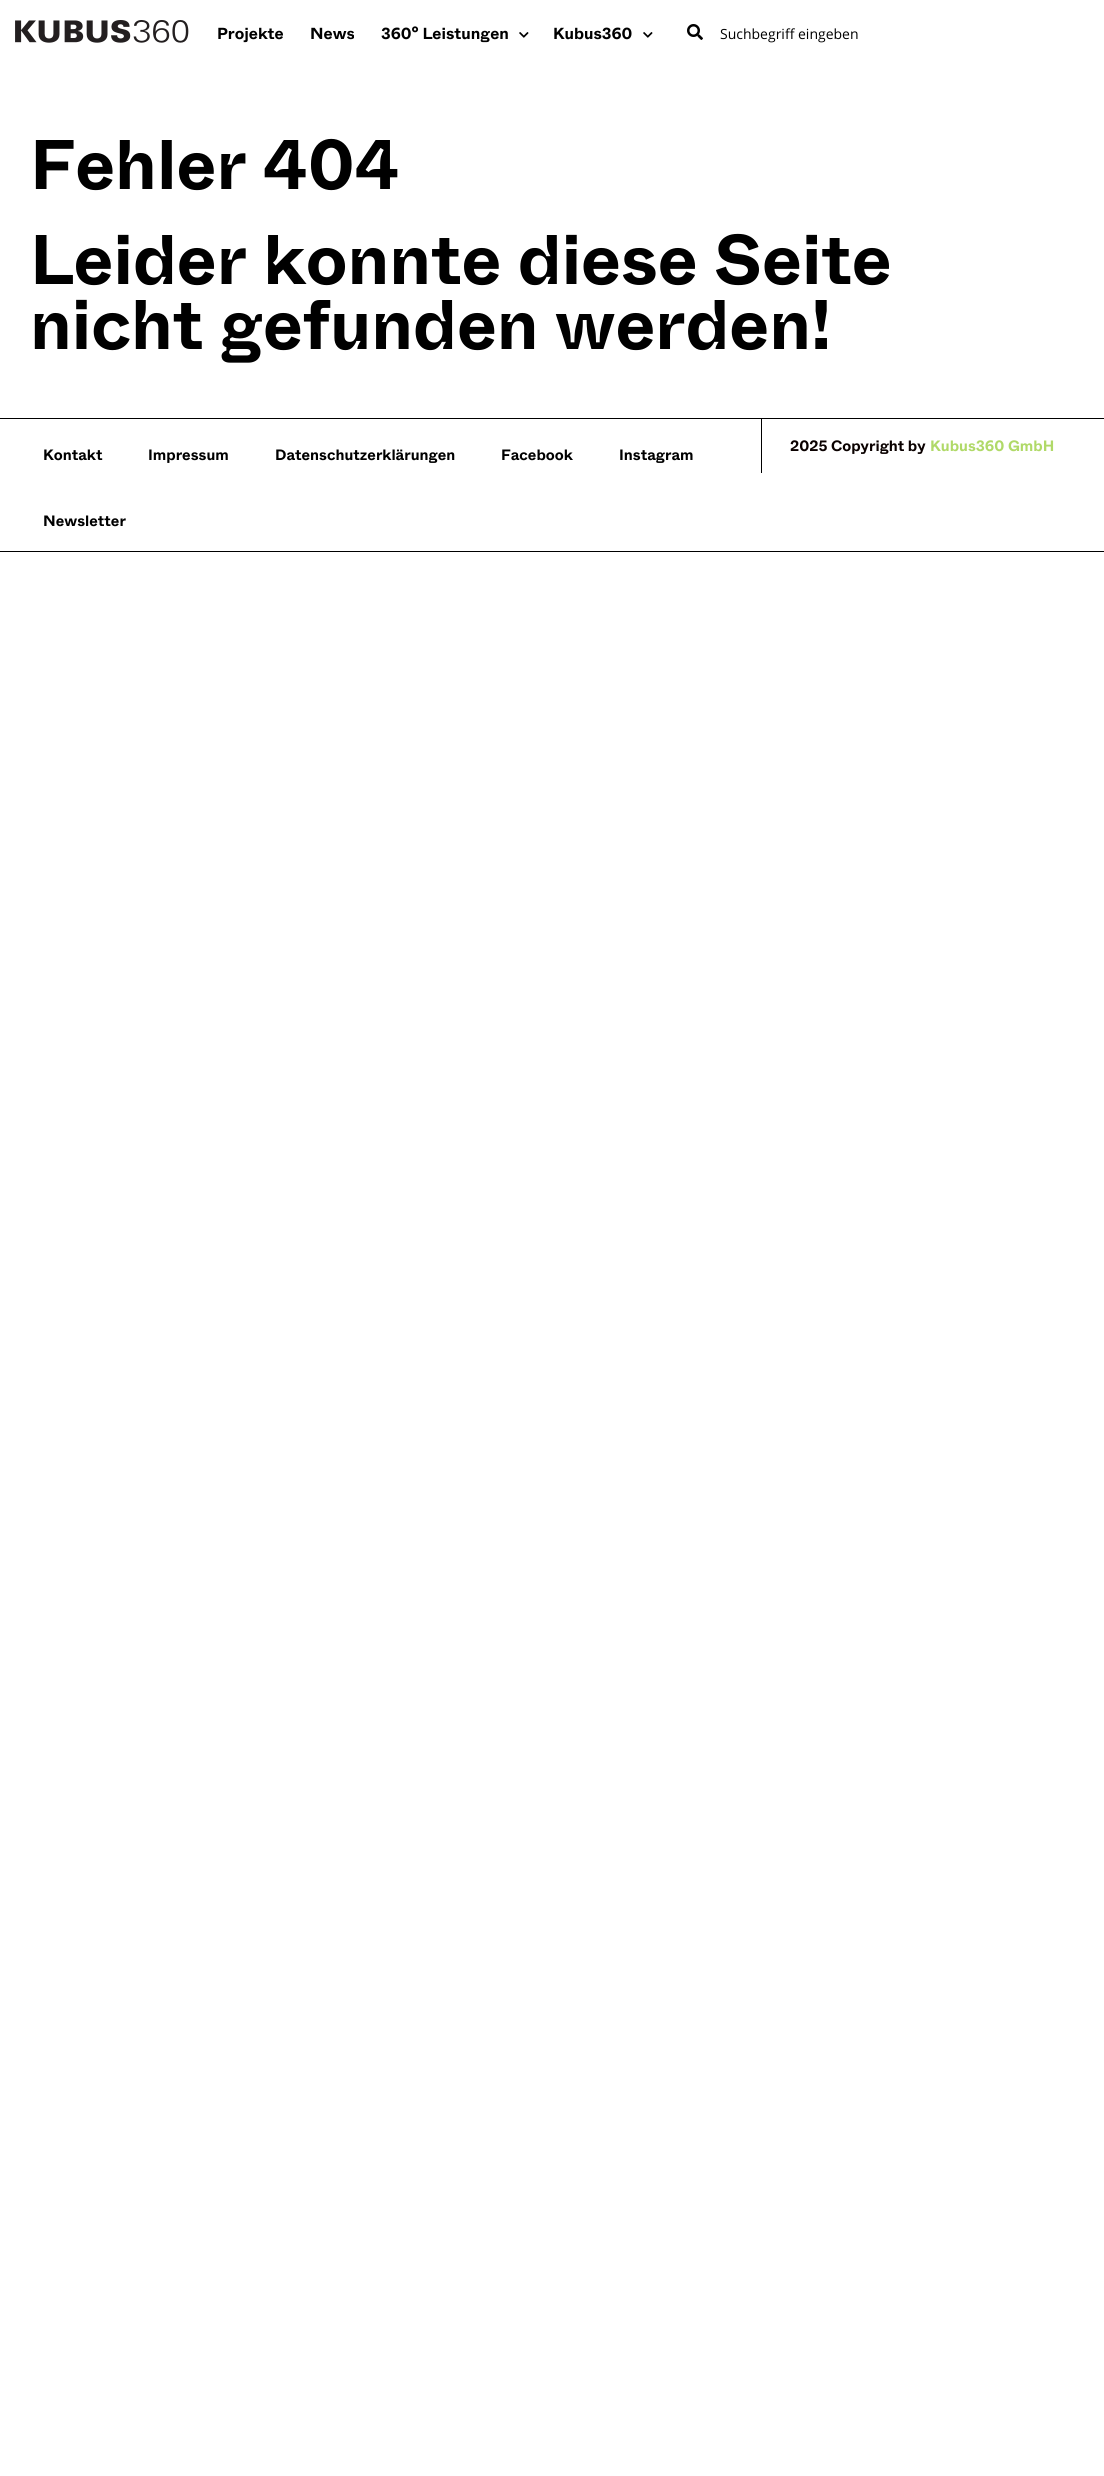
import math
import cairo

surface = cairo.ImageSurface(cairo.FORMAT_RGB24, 1104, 2476)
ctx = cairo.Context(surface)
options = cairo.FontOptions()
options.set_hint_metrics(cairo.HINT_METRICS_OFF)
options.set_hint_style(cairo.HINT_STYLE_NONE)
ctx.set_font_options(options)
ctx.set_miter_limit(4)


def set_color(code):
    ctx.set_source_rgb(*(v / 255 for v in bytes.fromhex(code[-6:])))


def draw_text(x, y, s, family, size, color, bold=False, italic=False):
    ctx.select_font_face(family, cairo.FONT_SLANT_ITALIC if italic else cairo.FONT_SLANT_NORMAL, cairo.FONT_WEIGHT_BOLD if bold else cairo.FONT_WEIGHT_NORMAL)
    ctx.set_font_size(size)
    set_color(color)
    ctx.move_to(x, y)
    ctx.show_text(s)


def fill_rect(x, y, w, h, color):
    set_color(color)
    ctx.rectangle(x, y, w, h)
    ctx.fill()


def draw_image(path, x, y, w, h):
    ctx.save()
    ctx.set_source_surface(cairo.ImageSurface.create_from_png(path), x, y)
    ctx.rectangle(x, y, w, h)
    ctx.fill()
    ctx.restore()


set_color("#ffffff")
ctx.paint()
draw_image("assets/img1.png", 15, 20, 174, 23)
draw_text(217, 39, "Projekte", "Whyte", 16, "#000000", bold=True)
draw_text(310, 39, "News", "Whyte", 16, "#000000", bold=True)
draw_text(381, 39, "360° Leistungen", "Whyte", 16, "#000000", bold=True)
draw_image("assets/img2.png", 519, 32, 10, 6)
draw_text(553, 39, "Kubus360", "Whyte", 16, "#000000", bold=True)
draw_image("assets/img2.png", 643, 32, 10, 6)
draw_image("assets/img3.png", 687, 24, 16, 16)
draw_text(720, 39, "Suchbegriff eingeben", "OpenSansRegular", 14, "#000000")
draw_text(30, 189, "Fehler 404", "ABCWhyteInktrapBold", 70, "#000000", bold=True)
draw_text(30, 284, "Leider konnte diese Seite", "ABCWhyteInktrapBold", 70, "#000000", bold=True)
draw_text(30, 349, "nicht gefunden werden!", "ABCWhyteInktrapBold", 70, "#000000", bold=True)
fill_rect(0, 418, 1104, 1, "#000000")
fill_rect(0, 551, 1104, 1, "#000000")
fill_rect(761, 419, 1, 54, "#000000")
draw_text(790, 451, "2025 Copyright by", "Whyte", 15, "#0a0100", bold=True)
draw_text(930, 451, "Kubus360 GmbH", "Whyte", 15, "#b0d968", bold=True)
draw_text(43, 460, "Kontakt", "Whyte", 15, "#000000", bold=True)
draw_text(148, 460, "Impressum", "Whyte", 15, "#000000", bold=True)
draw_text(275, 460, "Datenschutzerklärungen", "Whyte", 15, "#000000", bold=True)
draw_text(501, 460, "Facebook", "Whyte", 15, "#000000", bold=True)
draw_text(619, 460, "Instagram", "Whyte", 15, "#000000", bold=True)
draw_text(43, 526, "Newsletter", "Whyte", 15, "#000000", bold=True)
surface.write_to_png("output.png")
